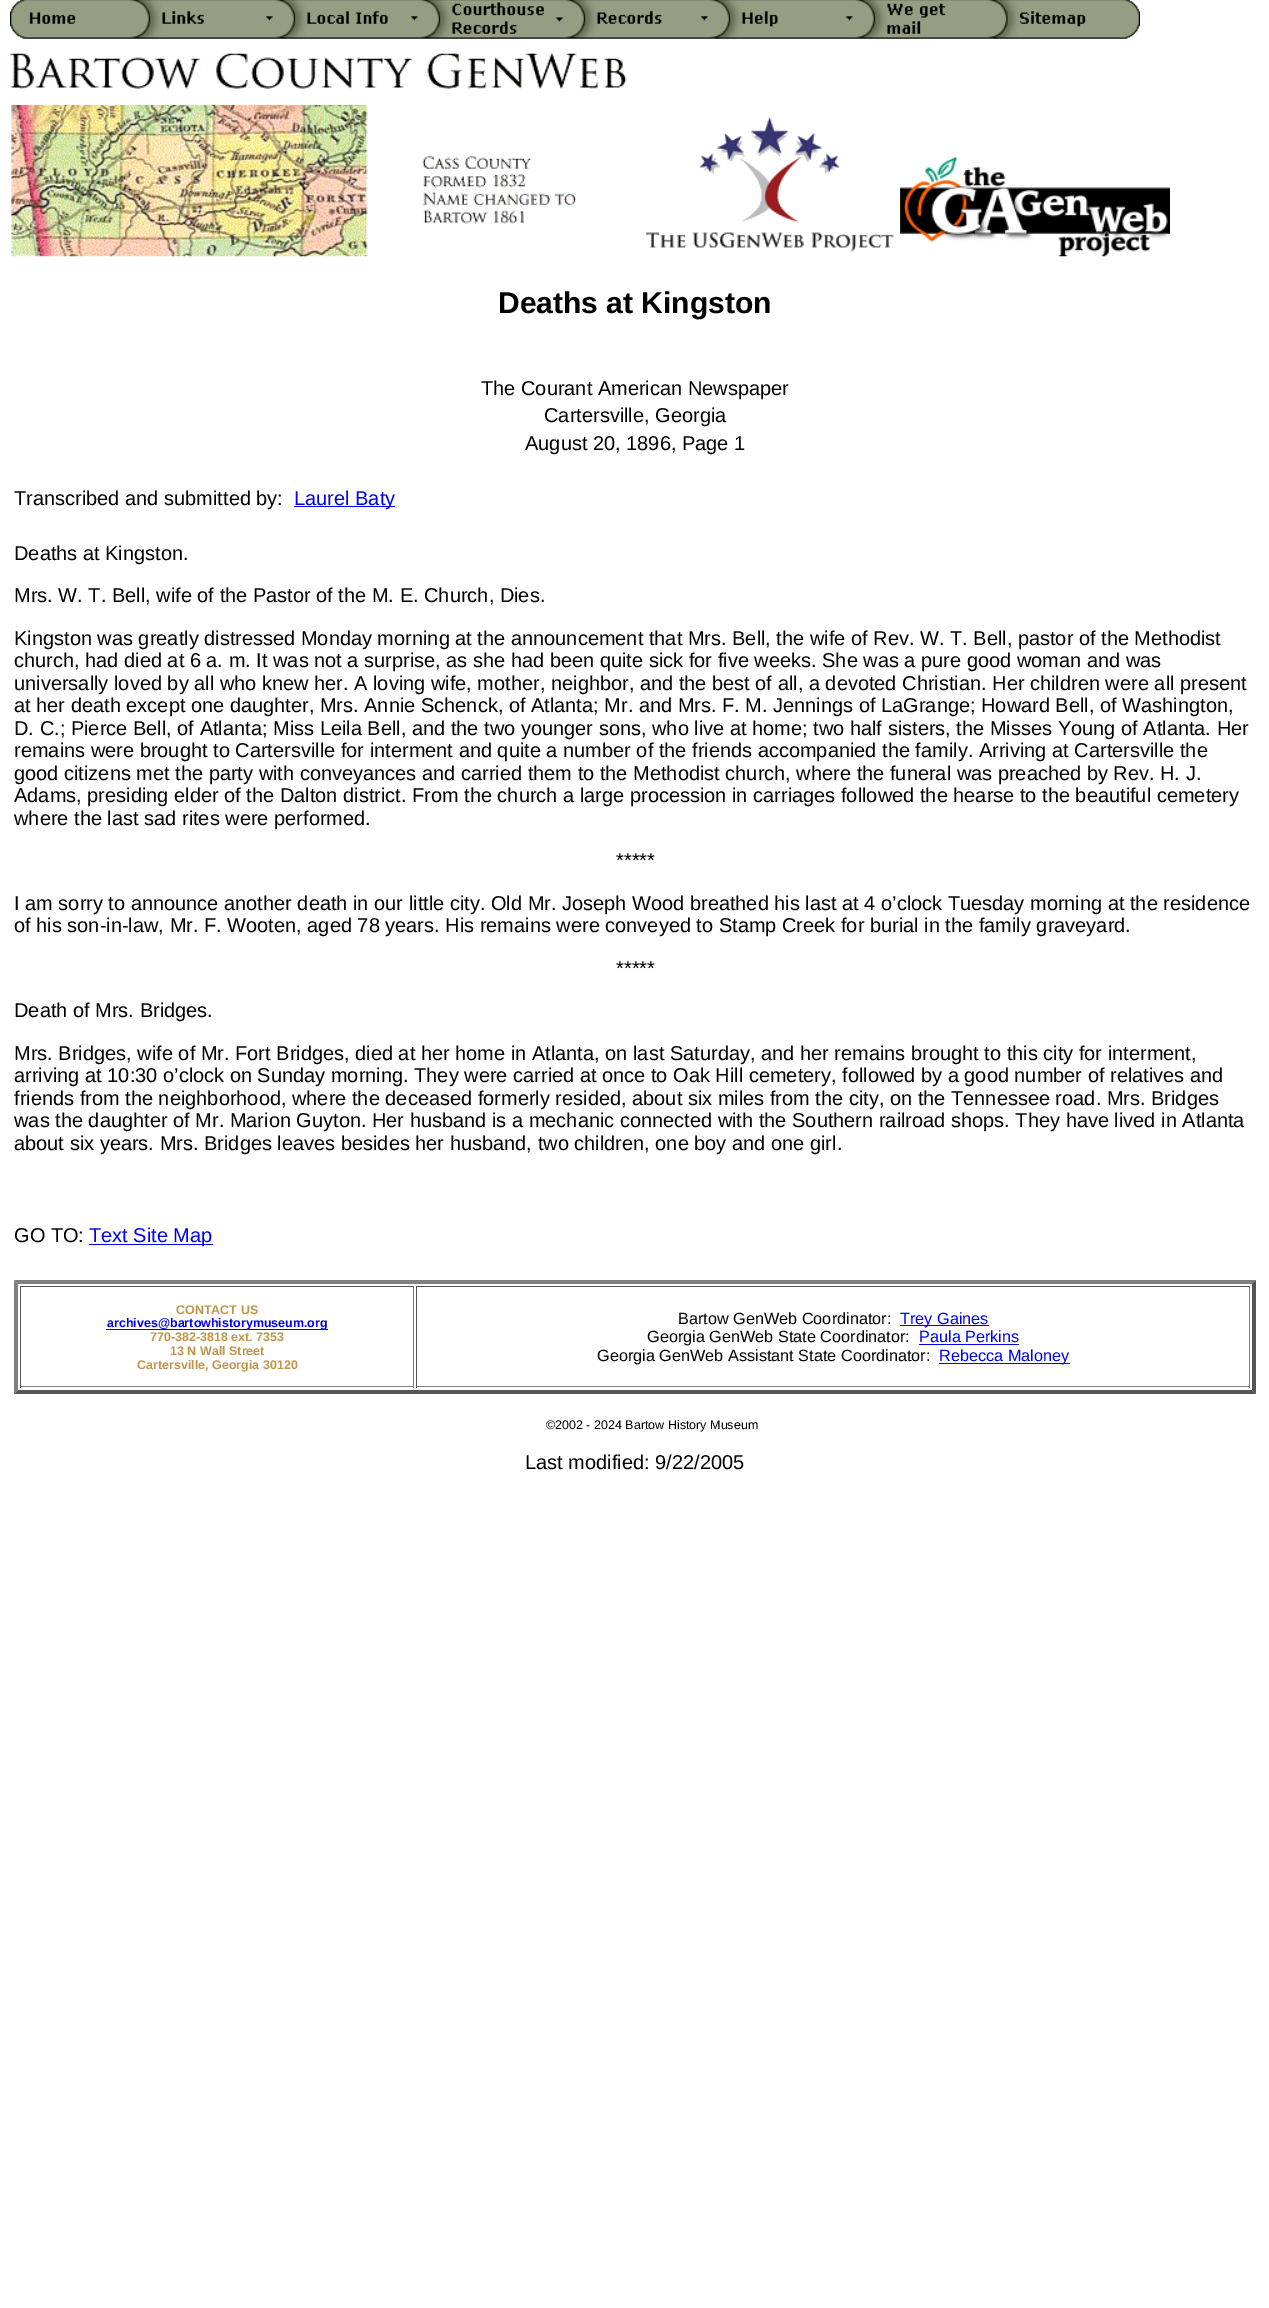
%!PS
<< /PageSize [1269 2308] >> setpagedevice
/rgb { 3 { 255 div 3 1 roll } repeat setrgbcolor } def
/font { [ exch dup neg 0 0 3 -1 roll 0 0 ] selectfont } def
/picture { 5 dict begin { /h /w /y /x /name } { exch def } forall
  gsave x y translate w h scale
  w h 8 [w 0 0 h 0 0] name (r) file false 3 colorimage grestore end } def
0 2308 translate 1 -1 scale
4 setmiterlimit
255 255 255 rgb
0 0 1269 2308 rectfill
(img/1.rgb) 10 0 1130 39 picture
(img/2.rgb) 10 53 617 204 picture
(img/3.rgb) 646 117 248 135 picture
(img/4.rgb) 900 157 270 100 picture
0 0 238 rgb
294 506 101 1 rectfill
89 1244 124 1 rectfill
128 128 128 rgb
14 1280 moveto 1256 1280 lineto 1252 1284 lineto 18 1284 lineto closepath fill
85 85 85 rgb
1256 1280 moveto 1256 1394 lineto 1252 1390 lineto 1252 1284 lineto closepath fill
1256 1394 moveto 14 1394 lineto 18 1390 lineto 1252 1390 lineto closepath fill
128 128 128 rgb
14 1394 moveto 14 1280 lineto 18 1284 lineto 18 1390 lineto closepath fill
[
  [20 1286 394 1 85 85 85]
  [413 1286 1 102 128 128 128]
  [20 1386 394 1 128 128 128]
  [20 1286 1 102 85 85 85]
  [106 1329 222 1 0 0 238]
  [416 1286 834 1 85 85 85]
  [1249 1286 1 102 128 128 128]
  [416 1386 834 1 128 128 128]
  [416 1286 1 102 85 85 85]
  [900 1325 89 1 0 0 238]
  [919 1344 100 1 0 0 238]
  [939 1363 131 1 0 0 238]
] { aload pop rgb rectfill } forall
/LiberationSans-Bold 30 font
0 0 0 rgb
498 313 moveto (Deaths at Kingston) show
/LiberationSans-Regular 20 font
[
  [(The Courant American Newspaper) 481 395]
  [(Cartersville, Georgia) 544 422]
  [(August 20, 1896, Page 1) 525 450]
  [(Transcribed and submitted by:) 14 505]
] { aload pop moveto show } forall
0 0 238 rgb
294 505 moveto (Laurel Baty) show
0 0 0 rgb
[
  [(Deaths at Kingston.) 14 560]
  [(Mrs. W. T. Bell, wife of the Pastor of the M. E. Church, Dies.) 14 602]
  [(Kingston was greatly distressed Monday morning at the announcement that Mrs. Bell, the wife of Rev. W. T. Bell, pastor of the Methodist) 14 645]
  [(church, had died at 6 a. m. It was not a surprise, as she had been quite sick for five weeks. She was a pure good woman and was) 14 667]
  [(universally loved by all who knew her. A loving wife, mother, neighbor, and the best of all, a devoted Christian. Her children were all present) 14 690]
  [(at her death except one daughter, Mrs. Annie Schenck, of Atlanta; Mr. and Mrs. F. M. Jennings of LaGrange; Howard Bell, of Washington,) 14 712]
  [(D. C.; Pierce Bell, of Atlanta; Miss Leila Bell, and the two younger sons, who live at home; two half sisters, the Misses Young of Atlanta. Her) 14 735]
  [(remains were brought to Cartersville for interment and quite a number of the friends accompanied the family. Arriving at Cartersville the) 14 757]
  [(good citizens met the party with conveyances and carried them to the Methodist church, where the funeral was preached by Rev. H. J.) 14 780]
  [(Adams, presiding elder of the Dalton district. From the church a large procession in carriages followed the hearse to the beautiful cemetery) 14 802]
  [(where the last sad rites were performed.) 14 825]
  [(*****) 616 867]
  [(I am sorry to announce another death in our little city. Old Mr. Joseph Wood breathed his last at 4 o’clock Tuesday morning at the residence) 14 910]
  [(of his son-in-law, Mr. F. Wooten, aged 78 years. His remains were conveyed to Stamp Creek for burial in the family graveyard.) 14 932]
  [(*****) 616 975]
  [(Death of Mrs. Bridges.) 14 1017]
  [(Mrs. Bridges, wife of Mr. Fort Bridges, died at her home in Atlanta, on last Saturday, and her remains brought to this city for interment,) 14 1060]
  [(arriving at 10:30 o’clock on Sunday morning. They were carried at once to Oak Hill cemetery, followed by a good number of relatives and) 14 1082]
  [(friends from the neighborhood, where the deceased formerly resided, about six miles from the city, on the Tennessee road. Mrs. Bridges) 14 1105]
  [(was the daughter of Mr. Marion Guyton. Her husband is a mechanic connected with the Southern railroad shops. They have lived in Atlanta) 14 1127]
  [(about six years. Mrs. Bridges leaves besides her husband, two children, one boy and one girl.) 14 1150]
  [(GO TO:) 14 1242]
] { aload pop moveto show } forall
0 0 238 rgb
89 1242 moveto (Text Site Map) show
/LiberationSans-Bold 12.5 font
191 149 75 rgb
176 1314 moveto (CONTACT US) show
0 0 238 rgb
107 1327 moveto (archives@bartowhistorymuseum.org) show
191 149 75 rgb
[
  [(770-382-3818 ext. 7353) 150 1341]
  [(13 N Wall Street) 170 1355]
  [(Cartersville, Georgia 30120) 137 1369]
] { aload pop moveto show } forall
/LiberationSans-Regular 16.25 font
0 0 0 rgb
678 1324 moveto (Bartow GenWeb Coordinator:) show
0 0 238 rgb
900 1324 moveto (Trey Gaines) show
0 0 0 rgb
647 1342 moveto (Georgia GenWeb State Coordinator:) show
0 0 238 rgb
919 1342 moveto (Paula Perkins) show
0 0 0 rgb
597 1361 moveto (Georgia GenWeb Assistant State Coordinator:) show
0 0 238 rgb
939 1361 moveto (Rebecca Maloney) show
/LiberationSans-Regular 12.5 font
0 0 0 rgb
546 1429 moveto (©2002 - 2024 Bartow History Museum) show
/LiberationSans-Regular 20 font
525 1469 moveto (Last modified: 9/22/2005) show
showpage
